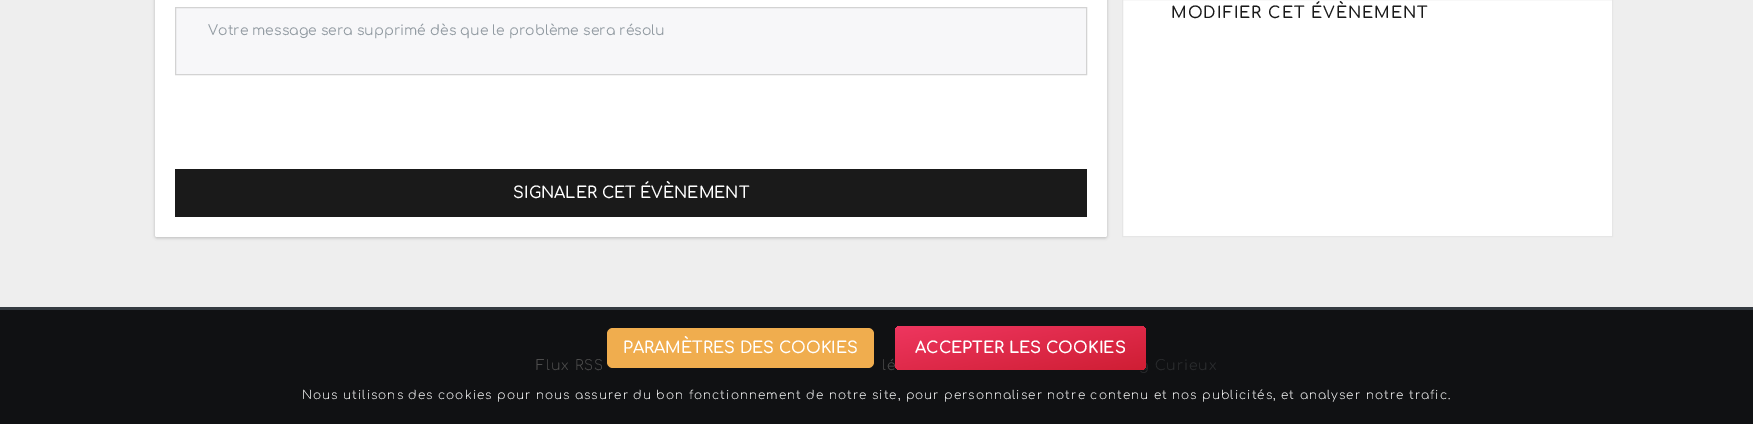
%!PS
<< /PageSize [1753 424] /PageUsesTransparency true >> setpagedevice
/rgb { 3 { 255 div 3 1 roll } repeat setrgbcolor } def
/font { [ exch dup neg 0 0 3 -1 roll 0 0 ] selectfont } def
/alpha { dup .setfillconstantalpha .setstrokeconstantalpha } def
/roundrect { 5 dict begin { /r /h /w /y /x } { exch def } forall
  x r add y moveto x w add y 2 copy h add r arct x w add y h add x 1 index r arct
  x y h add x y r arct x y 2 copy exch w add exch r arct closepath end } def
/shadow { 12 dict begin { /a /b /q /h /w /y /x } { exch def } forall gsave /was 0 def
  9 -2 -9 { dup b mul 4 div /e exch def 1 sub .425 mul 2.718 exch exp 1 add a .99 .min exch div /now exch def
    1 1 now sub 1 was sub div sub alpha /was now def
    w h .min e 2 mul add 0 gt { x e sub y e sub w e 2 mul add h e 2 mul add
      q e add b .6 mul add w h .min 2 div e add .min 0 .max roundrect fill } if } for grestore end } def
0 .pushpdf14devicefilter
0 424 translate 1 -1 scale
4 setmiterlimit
238 238 238 rgb
0 0 1753 424 rectfill
255 255 255 rgb
1122.5 -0.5 moveto 1612.5 -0.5 lineto 1612.5 236.5 lineto 1122.5 236.5 lineto closepath gsave fill grestore
230 230 230 rgb
stroke
187 187 187 rgb
155 -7 952 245 2 1.5 1 shadow
255 255 255 rgb
155 -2 952 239 2 roundrect fill
247 247 249 rgb
175.5 7.5 moveto 1086.5 7.5 lineto 1086.5 74.5 lineto 175.5 74.5 lineto closepath gsave fill grestore
211 211 211 rgb
stroke
26 26 26 rgb
175 169 912 48 rectfill
16 17 19 rgb
0 310 1753 114 rectfill
240 173 78 rgb
607 328 267 40 6 roundrect fill
52 58 64 rgb
0 307 1753 3 rectfill
/Comfortaa-SemiBold 16 font
26 26 26 rgb
1171 18 moveto 1 0 (MODIFIER CET ÉVÈNEMENT) ashow
/Comfortaa-Regular 14 font
145 154 161 rgb
208 35 moveto (Votre message sera supprimé dès que le problème sera résolu) show
/Comfortaa-SemiBold 16 font
255 255 255 rgb
513 198 moveto (SIGNALER CET ÉVÈNEMENT) show
623 353 moveto (PARAMÈTRES DES COOKIES) show
/Comfortaa-Light 12 font
302 399 moveto 1 0 (Nous utilisons des cookies pour nous assurer du bon fonctionnement de notre site, pour personnaliser notre contenu et nos publicités, et analyser notre trafic.) ashow
/Comfortaa-Light 14 font
77 77 77 rgb
536 370 moveto 1 0 (Flux RSS) ashow
882 370 moveto 1 0 (lé) ashow
44 46 48 rgb
1139 370 moveto 1 0 (g Curieux) ashow
gsave 895 326 251 44 6 roundrect clip newpath
<< /ShadingType 2 /ColorSpace /DeviceRGB /Coords [1029 392 1012 304] /Extend [true true] /Function << /FunctionType 2 /Domain [0 1] /C0 [0.812 0.118 0.204] /C1 [0.933 0.212 0.373] /N 1 >> >> shfill grestore
/Comfortaa-Bold 16 font
255 255 255 rgb
915 353 moveto (ACCEPTER LES COOKIES) show
.poppdf14devicefilter showpage
